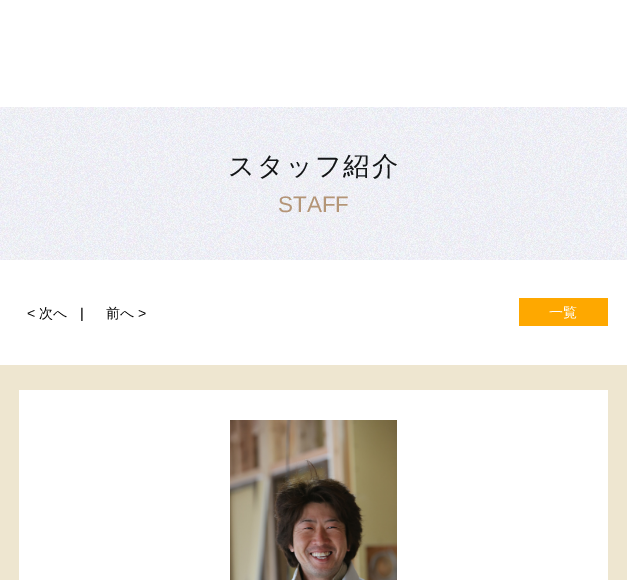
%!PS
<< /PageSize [627 580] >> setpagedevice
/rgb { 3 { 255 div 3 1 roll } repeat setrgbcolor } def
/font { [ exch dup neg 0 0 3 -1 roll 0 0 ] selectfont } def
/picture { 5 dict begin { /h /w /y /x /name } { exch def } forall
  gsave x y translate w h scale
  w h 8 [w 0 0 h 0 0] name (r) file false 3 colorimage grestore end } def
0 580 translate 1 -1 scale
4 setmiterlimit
255 255 255 rgb
0 0 627 580 rectfill
(img/1.rgb) 0 107 627 153 picture
[
  [519 298 89 28 254 168 0]
  [0 365 627 215 238 230 208]
  [19 390 589 190 255 255 255]
] { aload pop rgb rectfill } forall
(img/2.rgb) 230 420 167 160 picture
/WenQuanYiZenHei-Medium 26.25 font
19 21 23 rgb
228 175 moveto 2 0 (スタッフ紹介) ashow
/LiberationSans-Regular 22.5 font
180 149 119 rgb
278 212 moveto (STAFF) show
/LiberationSans-Regular 14 font
9 9 9 rgb
27 318 moveto (<) show
/WenQuanYiZenHei-Medium 14 font
39 318 moveto (次へ) show
/LiberationSans-Regular 14 font
0 0 0 rgb
80 318 moveto (|) show
/WenQuanYiZenHei-Medium 14 font
9 9 9 rgb
106 318 moveto (前へ) show
/LiberationSans-Regular 14 font
138 318 moveto (>) show
/WenQuanYiZenHei-Medium 14 font
255 255 255 rgb
549 317 moveto (一覧) show
showpage
